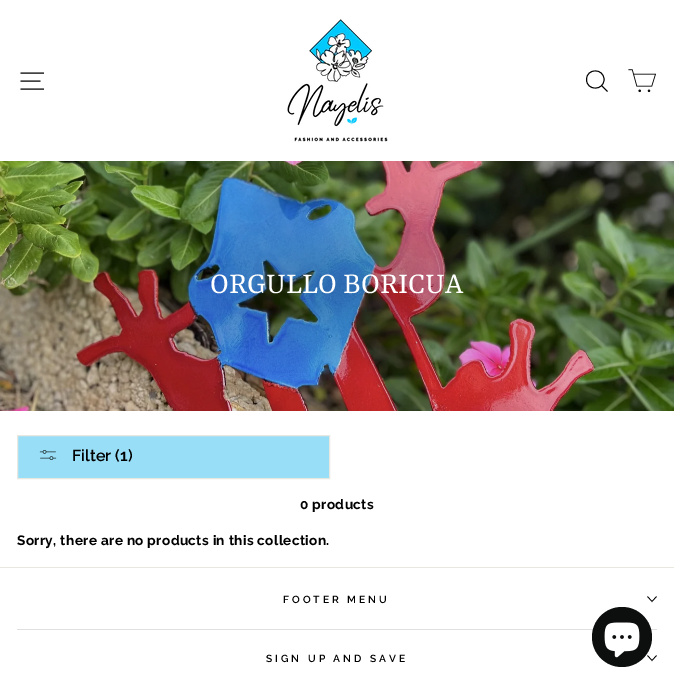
%!PS
<< /PageSize [674 688] >> setpagedevice
/rgb { 3 { 255 div 3 1 roll } repeat setrgbcolor } def
/font { [ exch dup neg 0 0 3 -1 roll 0 0 ] selectfont } def
/circle { newpath 0 360 arc closepath } def
/picture { 5 dict begin { /h /w /y /x /name } { exch def } forall
  gsave x y translate w h scale
  w h 8 [w 0 0 h 0 0] name (r) file false 3 colorimage grestore end } def
0 688 translate 1 -1 scale
4 setmiterlimit
255 255 255 rgb
0 0 674 688 rectfill
0 0 0 rgb
0.9 setlinewidth
20.5 73 moveto 44 73 lineto 20.5 81 moveto 40.5 81 lineto 20.5 89 moveto 44 89 lineto stroke
(img/1.rgb) 287 19 101 123 picture
604 79.5 moveto 604 91 586.5 91 586.5 79.5 curveto 586.5 68 604 68 604 79.5 curveto closepath 607.5 91.5 moveto 601.5 85.5 lineto stroke
(img/2.rgb) 628 69 28 24 picture
(img/3.rgb) 0 161 674 250 picture
153 222 247 rgb
17.5 435.5 moveto 329.5 435.5 lineto 329.5 478.5 lineto 17.5 478.5 lineto closepath gsave fill grestore
232 232 225 rgb
1 setlinewidth
stroke
(img/4.rgb) 39 450 18 10 picture
0 567 674 1 rectfill
0 0 0 rgb
0.7 setlinewidth
647.5 596.5 moveto 652 601.5 lineto 656.5 596.5 lineto stroke
224 224 224 rgb
17 629 640 1 rectfill
0 0 0 rgb
647.5 655.5 moveto 652 660.5 lineto 656.5 655.5 lineto stroke
13 14 14 rgb
622 637 30 circle fill
(img/5.rgb) 604 622 36 36 picture
/Yrsa-Regular 32.25 font
255 255 255 rgb
210 293 moveto (ORGULLO BORICUA) show
/Raleway-SemiBold 16 font
0 0 0 rgb
72 461 moveto (Filter \(1\)) show
/Raleway-Bold 13.6 font
300 509 moveto 0.35 0 (0 products) ashow
17 545 moveto 0.35 0 (Sorry, there are no products in this collection.) ashow
/Raleway-SemiBold 10.25 font
283 603 moveto 3 0 (FOOTER MENU) ashow
266 662 moveto 3 0 (SIGN UP AND SAVE) ashow
showpage
